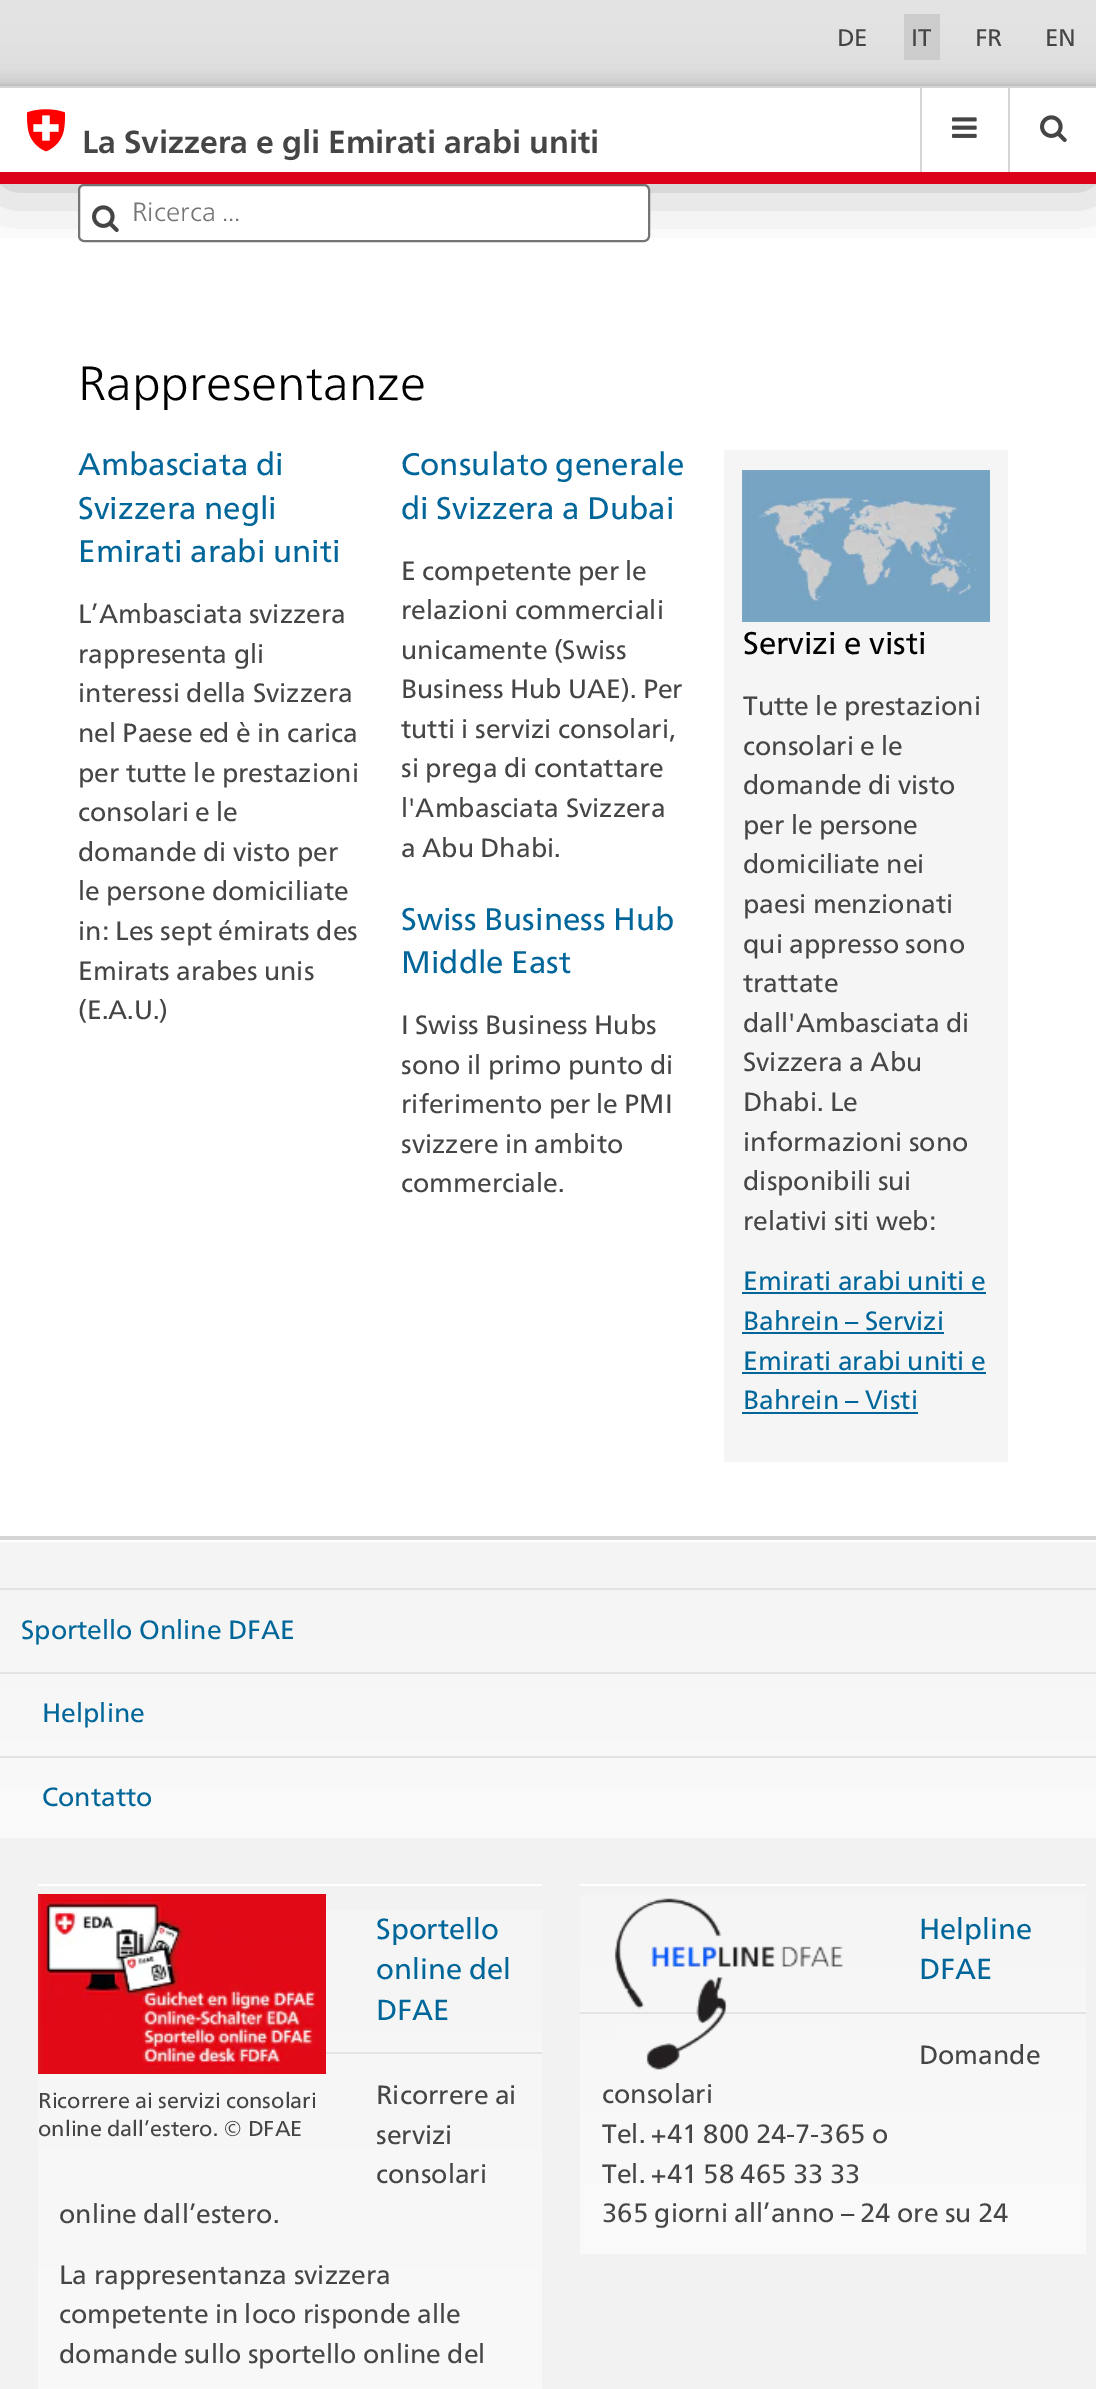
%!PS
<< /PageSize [1096 2389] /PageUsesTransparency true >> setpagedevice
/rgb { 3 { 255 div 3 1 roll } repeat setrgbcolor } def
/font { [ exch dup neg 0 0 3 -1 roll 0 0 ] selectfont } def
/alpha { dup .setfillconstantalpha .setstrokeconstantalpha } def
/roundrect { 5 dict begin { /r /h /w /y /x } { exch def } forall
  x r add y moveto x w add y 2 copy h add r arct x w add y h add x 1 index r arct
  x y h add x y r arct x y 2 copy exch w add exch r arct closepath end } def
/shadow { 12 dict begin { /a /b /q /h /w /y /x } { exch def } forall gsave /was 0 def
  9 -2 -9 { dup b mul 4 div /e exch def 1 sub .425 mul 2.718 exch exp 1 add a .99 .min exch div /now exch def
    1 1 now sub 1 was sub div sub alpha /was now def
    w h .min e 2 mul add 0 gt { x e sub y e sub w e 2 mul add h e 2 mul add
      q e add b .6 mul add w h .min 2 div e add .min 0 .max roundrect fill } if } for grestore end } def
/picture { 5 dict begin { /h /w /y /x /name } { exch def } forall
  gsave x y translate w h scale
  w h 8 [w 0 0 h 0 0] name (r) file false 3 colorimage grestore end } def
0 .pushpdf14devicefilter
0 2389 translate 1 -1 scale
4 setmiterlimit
255 255 255 rgb
0 0 1096 2389 rectfill
gsave
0 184 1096 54 rectclip
0 0 0 rgb
0 88 1096 96 0 36 0.3 shadow
grestore
gsave 0 0 moveto 1096 0 lineto 1096 86 lineto 0 86 lineto closepath clip newpath
<< /ShadingType 2 /ColorSpace /DeviceRGB /Coords [548 0 548 86] /Extend [true true] /Function << /FunctionType 3 /Domain [0 1] /Functions [<< /FunctionType 2 /Domain [0 1] /C0 [0.894 0.894 0.894] /C1 [0.886 0.886 0.886] /N 1 >> << /FunctionType 2 /Domain [0 1] /C0 [0.886 0.886 0.886] /C1 [0.867 0.867 0.867] /N 1 >> << /FunctionType 2 /Domain [0 1] /C0 [0.867 0.867 0.867] /C1 [0.835 0.835 0.835] /N 1 >> << /FunctionType 2 /Domain [0 1] /C0 [0.835 0.835 0.835] /C1 [0.812 0.812 0.812] /N 1 >> << /FunctionType 2 /Domain [0 1] /C0 [0.812 0.812 0.812] /C1 [0.745 0.745 0.745] /N 1 >>] /Bounds [0.39 0.79 0.91 0.95] /Encode [0 1 0 1 0 1 0 1 0 1] >> >> shfill grestore
[
  [0 86 1096 2 213 213 213]
  [904 14 36 46 204 204 204]
  [0 172 1096 12 220 0 24]
] { aload pop rgb rectfill } forall
(img/1.rgb) 27 109 39 43 picture
213 213 213 rgb
920 88 2 84 rectfill
(img/2.rgb) 952 117 25 21 picture
1008 88 2 84 rectfill
(img/3.rgb) 1040 115 27 27 picture
255 255 255 rgb
79 185 570 56 5 roundrect gsave fill grestore
117 117 117 rgb
2 setlinewidth
stroke
(img/3.rgb) 92 205 27 27 picture
245 245 245 rgb
724 450 284 1012 rectfill
(img/4.rgb) 742 470 248 152 picture
[
  [742 1292 244 2 0 102 153]
  [742 1332 202 2 0 102 153]
  [742 1372 244 2 0 102 153]
  [742 1412 176 2 0 102 153]
  [0 1838 1096 551 242 242 242]
  [0 1536 1096 4 213 213 213]
] { aload pop rgb rectfill } forall
gsave 0 1542 moveto 1096 1542 lineto 1096 1838 lineto 0 1838 lineto closepath clip newpath
<< /ShadingType 2 /ColorSpace /DeviceRGB /Coords [548 1540 548 1838] /Extend [true true] /Function << /FunctionType 2 /Domain [0 1] /C0 [0.957 0.957 0.957] /C1 [0.98 0.98 0.98] /N 1 >> >> shfill grestore
[
  [0 1588 1096 2 227 227 227]
  [0 1672 1096 2 227 227 227]
  [0 1756 1096 2 227 227 227]
] { aload pop rgb rectfill } forall
gsave 38 1910 moveto 542 1910 lineto 542 2389 lineto 38 2389 lineto closepath clip newpath
<< /ShadingType 2 /ColorSpace /DeviceRGB /Coords [290 1862 290 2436] /Extend [true true] /Function << /FunctionType 2 /Domain [0 1] /C0 [0.957 0.957 0.957] /C1 [0.98 0.98 0.98] /N 1 >> >> shfill grestore
255 255 255 rgb
38 1884 504 2 rectfill
227 227 227 rgb
326 2052 216 2 rectfill
(img/5.rgb) 38 1894 288 180 picture
gsave 580 1895 moveto 1086 1895 lineto 1086 2254 lineto 580 2254 lineto closepath clip newpath
<< /ShadingType 2 /ColorSpace /DeviceRGB /Coords [833 1862 833 2254] /Extend [true true] /Function << /FunctionType 2 /Domain [0 1] /C0 [0.957 0.957 0.957] /C1 [0.98 0.98 0.98] /N 1 >> >> shfill grestore
580 2012 506 2 rectfill
(img/6.rgb) 614 1898 229 172 picture
255 255 255 rgb
580 1884 506 2 rectfill
/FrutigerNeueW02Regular-Regular 24 font
69 69 69 rgb
[
  [(DE) 837 46]
  [(IT) 911 46]
  [(FR) 975 46]
  [(EN) 1045 46]
] { aload pop moveto show } forall
/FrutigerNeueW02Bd-Bold 31.7 font
82 153 moveto (La Svizzera e gli Emirati arabi uniti) show
/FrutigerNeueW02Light-Light 26.4 font
117 117 117 rgb
132 221 moveto (Ricerca ...) show
/FrutigerNeueW02Light-Light 48 font
0 0 0 rgb
78 400 moveto (Rappresentanze) show
/FrutigerNeueW02Regular-Regular 31.25 font
0 102 153 rgb
[
  [(Ambasciata di) 78 475]
  [(Svizzera negli) 78 519]
  [(Emirati arabi uniti) 78 562]
] { aload pop moveto show } forall
/FrutigerNeueW02Regular-Regular 26.4 font
69 69 69 rgb
[
  [(L’Ambasciata svizzera) 78 623]
  [(rappresenta gli) 78 663]
  [(interessi della Svizzera) 78 702]
  [(nel Paese ed è in carica) 78 742]
  [(per tutte le prestazioni) 78 782]
  [(consolari e le) 78 821]
  [(domande di visto per) 78 861]
  [(le persone domiciliate) 78 900]
  [(in: Les sept émirats des) 78 940]
  [(Emirats arabes unis) 78 980]
  [(\(E.A.U.\)) 78 1019]
] { aload pop moveto show } forall
/FrutigerNeueW02Regular-Regular 31.25 font
0 102 153 rgb
401 475 moveto (Consulato generale) show
401 519 moveto (di Svizzera a Dubai) show
/FrutigerNeueW02Regular-Regular 26.4 font
69 69 69 rgb
[
  [(E competente per le) 401 580]
  [(relazioni commerciali) 401 619]
  [(unicamente \(Swiss) 401 659]
  [(Business Hub UAE\). Per) 401 698]
  [(tutti i servizi consolari,) 401 738]
  [(si prega di contattare) 401 777]
  [(l'Ambasciata Svizzera) 401 817]
  [(a Abu Dhabi.) 401 857]
] { aload pop moveto show } forall
/FrutigerNeueW02Regular-Regular 31.25 font
0 102 153 rgb
401 930 moveto (Swiss Business Hub) show
401 973 moveto (Middle East) show
/FrutigerNeueW02Regular-Regular 26.4 font
69 69 69 rgb
[
  [(I Swiss Business Hubs) 401 1034]
  [(sono il primo punto di) 401 1074]
  [(riferimento per le PMI) 401 1113]
  [(svizzere in ambito) 401 1153]
  [(commerciale.) 401 1192]
] { aload pop moveto show } forall
/FrutigerNeueW02Regular-Regular 31.25 font
0 0 0 rgb
743 654 moveto (Servizi e visti) show
/FrutigerNeueW02Regular-Regular 26.4 font
69 69 69 rgb
[
  [(Tutte le prestazioni) 743 715]
  [(consolari e le) 743 755]
  [(domande di visto) 743 794]
  [(per le persone) 743 834]
  [(domiciliate nei) 743 873]
  [(paesi menzionati) 743 913]
  [(qui appresso sono) 743 953]
  [(trattate) 743 992]
  [(dall'Ambasciata di) 743 1032]
  [(Svizzera a Abu) 743 1071]
  [(Dhabi. Le) 743 1111]
  [(informazioni sono) 743 1151]
  [(disponibili sui) 743 1190]
  [(relativi siti web:) 743 1230]
] { aload pop moveto show } forall
0 102 153 rgb
[
  [(Emirati arabi uniti e) 743 1290]
  [(Bahrein – Servizi) 743 1330]
  [(Emirati arabi uniti e) 743 1370]
  [(Bahrein – Visti) 743 1409]
  [(Sportello Online DFAE) 21 1639]
  [(Helpline) 42 1722]
  [(Contatto) 42 1806]
] { aload pop moveto show } forall
/FrutigerNeueW02Regular-Regular 29 font
[
  [(Sportello) 376 1939]
  [(online del) 376 1979]
  [(DFAE) 376 2020]
] { aload pop moveto show } forall
/FrutigerNeueW02Regular-Regular 26.4 font
69 69 69 rgb
[
  [(Ricorrere ai) 376 2104]
  [(servizi) 376 2144]
  [(consolari) 376 2183]
  [(online dall’estero.) 59 2223]
] { aload pop moveto show } forall
/FrutigerNeueW02Regular-Regular 21.6 font
38 2108 moveto (Ricorrere ai servizi consolari) show
38 2136 moveto (online dall’estero. © DFAE) show
/FrutigerNeueW02Regular-Regular 26.4 font
[
  [(La rappresentanza svizzera) 59 2284]
  [(competente in loco risponde alle) 59 2323]
  [(domande sullo sportello online del) 59 2363]
] { aload pop moveto show } forall
/FrutigerNeueW02Regular-Regular 29 font
0 102 153 rgb
919 1939 moveto (Helpline) show
919 1979 moveto (DFAE) show
/FrutigerNeueW02Regular-Regular 26.4 font
69 69 69 rgb
[
  [(Domande) 919 2064]
  [(consolari) 602 2103]
  [(Tel. +41 800 24-7-365 o) 602 2143]
  [(Tel. +41 58 465 33 33) 602 2183]
  [(365 giorni all’anno – 24 ore su 24) 602 2222]
] { aload pop moveto show } forall
.poppdf14devicefilter showpage
